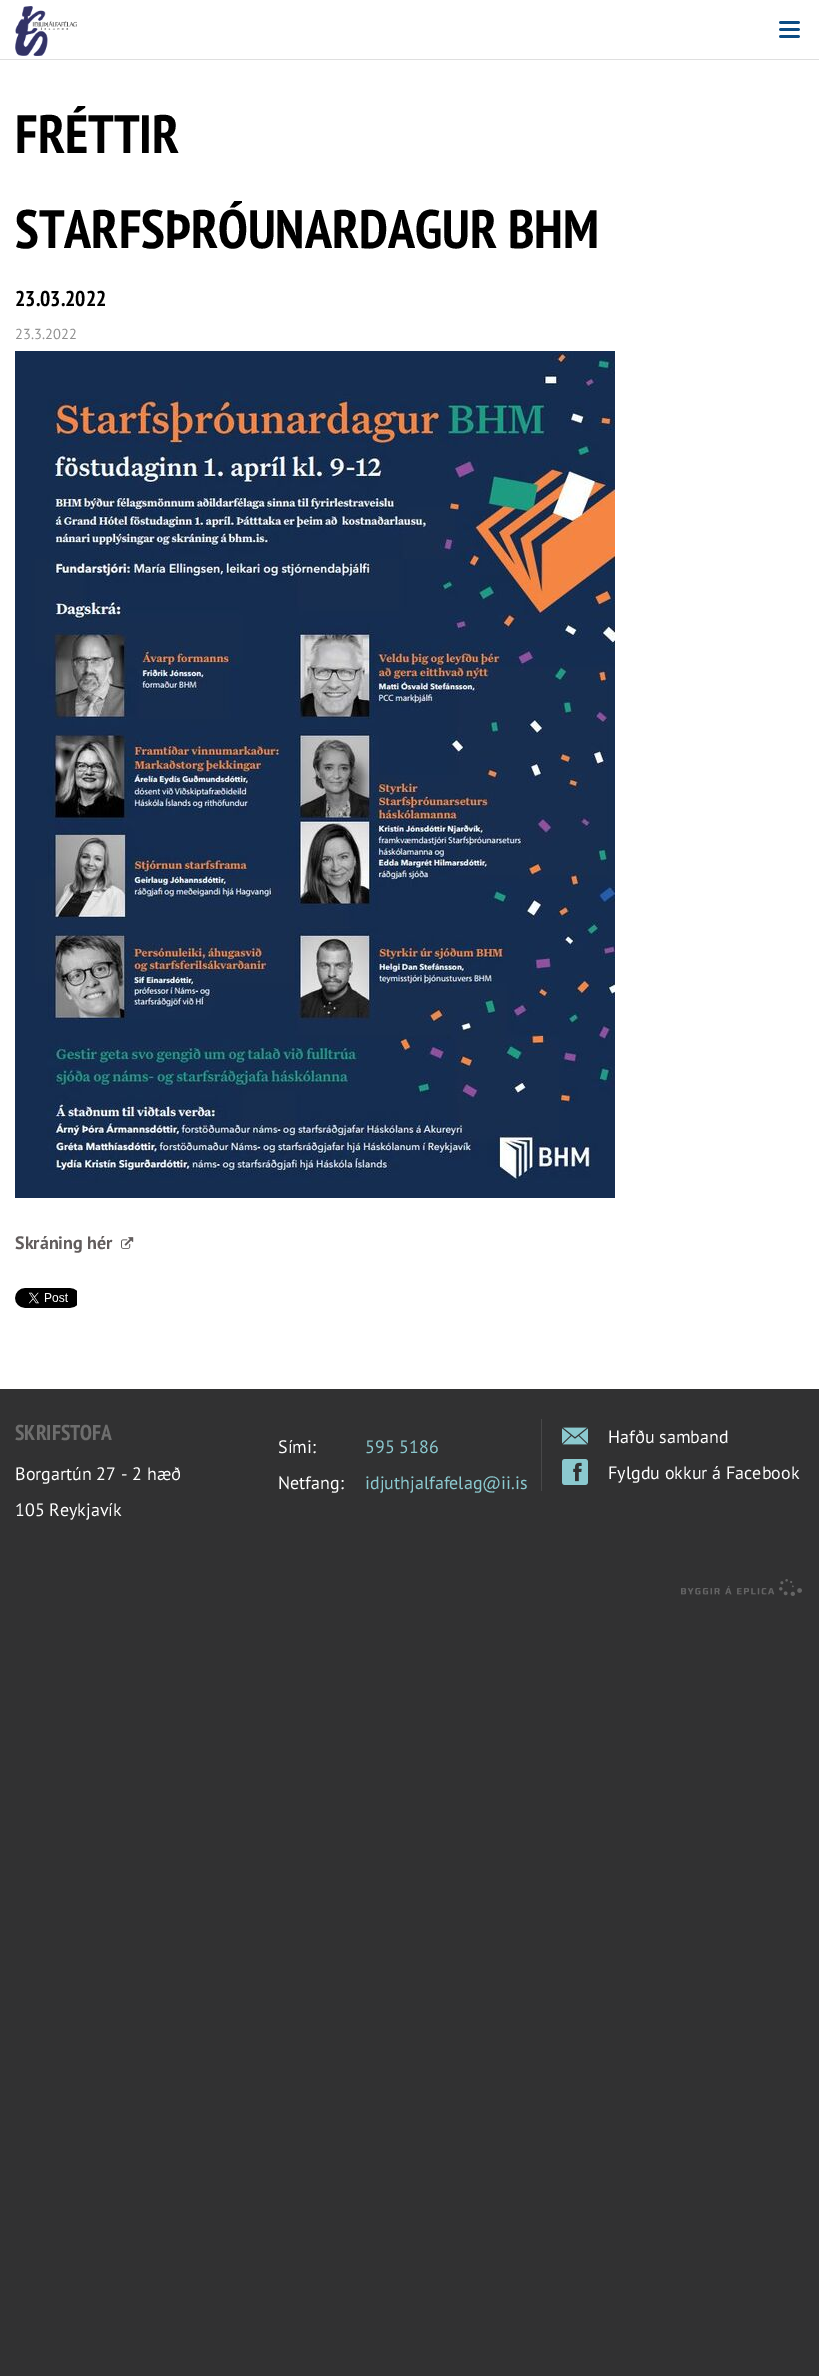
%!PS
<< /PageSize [819 2376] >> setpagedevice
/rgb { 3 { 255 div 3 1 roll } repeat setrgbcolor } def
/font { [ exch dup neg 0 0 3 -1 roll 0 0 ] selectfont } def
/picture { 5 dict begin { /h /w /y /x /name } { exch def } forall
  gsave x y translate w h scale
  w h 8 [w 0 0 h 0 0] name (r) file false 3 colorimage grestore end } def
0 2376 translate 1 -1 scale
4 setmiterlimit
49 49 50 rgb
0 0 819 2376 rectfill
255 255 255 rgb
0 0 819 59 rectfill
223 223 223 rgb
0 59 819 1 rectfill
(img/1.rgb) 15 6 62 50 picture
(img/2.rgb) 779 21 21 17 picture
255 255 255 rgb
0 60 819 1329 rectfill
(img/3.rgb) 15 351 600 847 picture
(img/4.rgb) 121 1237 13 12 picture
(img/5.rgb) 15 1288 62 20 picture
72 72 73 rgb
541 1419 1 72 rectfill
(img/6.rgb) 562 1427 26 18 picture
(img/7.rgb) 562 1459 26 26 picture
(img/8.rgb) 681 1579 121 17 picture
/PTSansNarrow-Bold 54 font
0 0 0 rgb
15 153 moveto (FRÉTTIR) show
15 248 moveto (STARFSÞRÓUNARDAGUR BHM) show
/PTSansNarrow-Bold 21.5 font
15 306 moveto (23.03.2022) show
/PTSans-Regular 14.5 font
145 145 145 rgb
15 339 moveto (23.3.2022) show
/PTSans-Bold 18 font
98 93 93 rgb
15 1249 moveto (Skráning hér) show
/PTSansNarrow-Bold 21.5 font
110 110 110 rgb
15 1440 moveto (SKRIFSTOFA) show
/PTSans-Regular 18 font
255 255 255 rgb
[
  [(Borgartún 27 - 2 hæð) 15 1480]
  [(105 Reykjavík) 15 1516]
  [(Sími:) 278 1453]
] { aload pop moveto show } forall
139 201 207 rgb
365 1453 moveto (595 5186) show
255 255 255 rgb
278 1489 moveto (Netfang:) show
139 201 207 rgb
365 1489 moveto (idjuthjalfafelag@ii.is) show
255 255 255 rgb
608 1443 moveto (Hafðu samband) show
608 1479 moveto (Fylgdu okkur á Facebook) show
showpage
